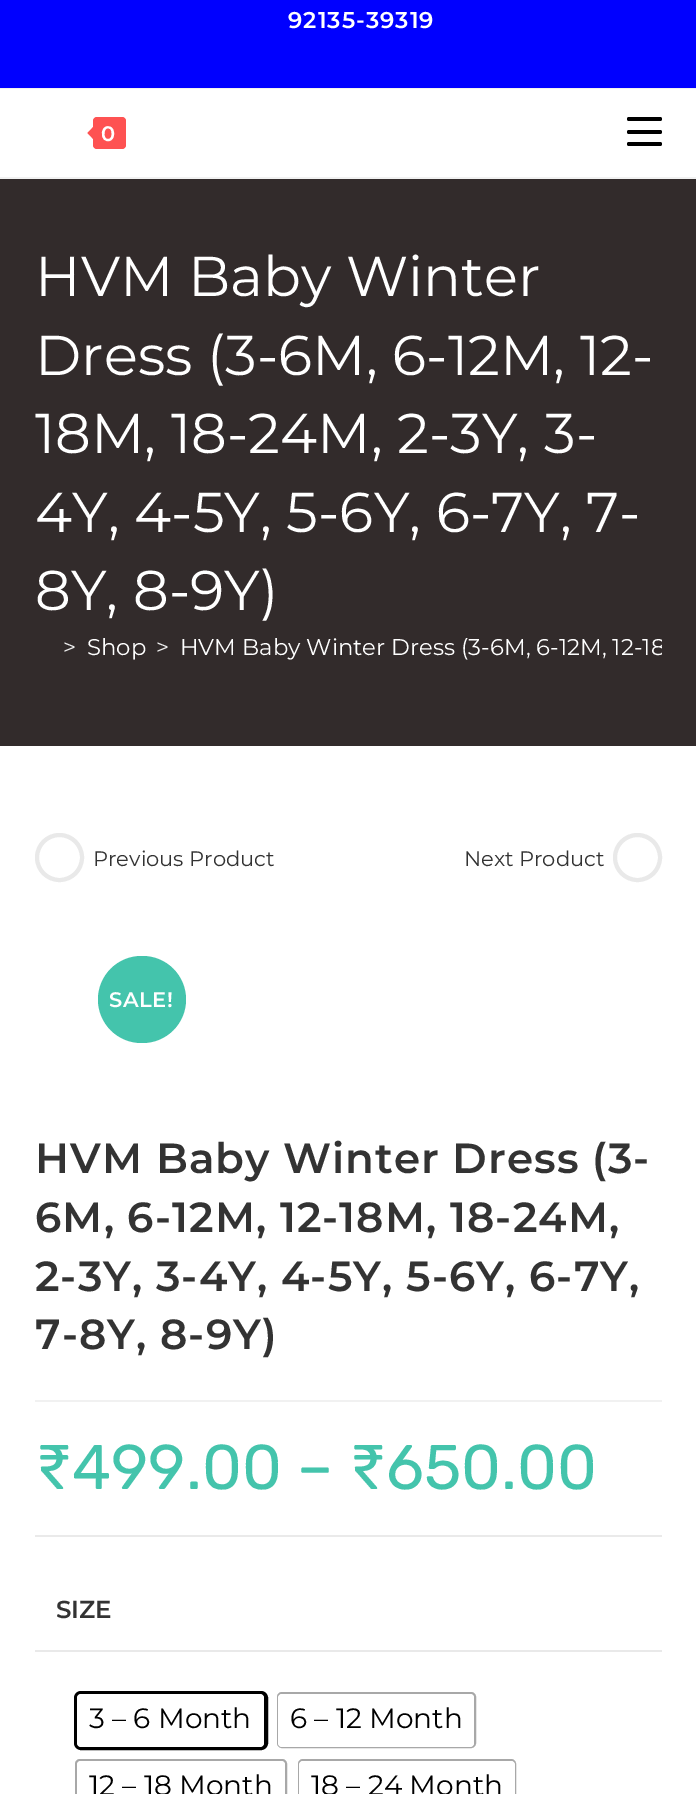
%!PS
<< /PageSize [696 1794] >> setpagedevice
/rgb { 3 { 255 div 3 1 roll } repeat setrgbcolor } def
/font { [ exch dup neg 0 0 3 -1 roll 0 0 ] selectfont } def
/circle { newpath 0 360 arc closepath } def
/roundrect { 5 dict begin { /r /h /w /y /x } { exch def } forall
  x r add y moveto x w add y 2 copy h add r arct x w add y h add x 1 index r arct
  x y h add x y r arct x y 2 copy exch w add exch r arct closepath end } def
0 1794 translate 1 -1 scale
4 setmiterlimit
255 255 255 rgb
0 0 696 1794 rectfill
[
  [0 0 696 88 0 0 255]
  [0 88 696 1 241 241 241]
  [0 177 696 2 241 241 241]
] { aload pop rgb rectfill } forall
254 82 82 rgb
93 117 33 32 4 roundrect fill
96 124 moveto 96 142 lineto 87.5 133 lineto closepath fill
0 0 0 rgb
627 142 35 4 2 roundrect fill
627 117 35 4 2 roundrect fill
627 130 35 4 2 roundrect fill
50 43 43 rgb
0 179 696 567 rectfill
233 233 233 rgb
4 setlinewidth
59.5 857.5 22.5 circle stroke
637.5 857.5 22.5 circle stroke
68 196 172 rgb
98 956 88 87 43.5 roundrect fill
[
  [35 1400 627 2 241 241 241]
  [35 1535 627 2 234 234 234]
  [35 1650 627 2 233 233 233]
] { aload pop rgb rectfill } forall
0 0 0 rgb
76 1693 190 55 5 roundrect stroke
255 255 255 rgb
77 1694 187 53 4 roundrect fill
168 168 168 rgb
2 setlinewidth
278 1693 197 54 4 roundrect stroke
255 255 255 rgb
278 1694 196 53 4 roundrect fill
168 168 168 rgb
76 1760 210 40 4 roundrect stroke
255 255 255 rgb
77 1761 208 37 4 roundrect fill
168 168 168 rgb
299 1760 216 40 4 roundrect stroke
255 255 255 rgb
299 1761 216 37 4 roundrect fill
/Montserrat-SemiBold 22.75 font
288 28 moveto 1.05 0 (92135-39319) ashow
/Montserrat-SemiBold 21 font
101 141 moveto 2 0 (0) ashow
/Montserrat-Regular 56 font
[
  [(HVM Baby Winter) 35 296]
  [(Dress \(3-6M, 6-12M, 12-) 35 375]
  [(18M, 18-24M, 2-3Y, 3-) 35 453]
  [(4Y, 4-5Y, 5-6Y, 6-7Y, 7-) 35 532]
  [(8Y, 8-9Y\)) 35 610]
] { aload pop moveto show } forall
/Montserrat-Regular 22.75 font
239 239 239 rgb
63 655 moveto (>) show
255 255 255 rgb
87 655 moveto (Shop) show
239 239 239 rgb
156 655 moveto (>) show
gsave
35 630 627 56 rectclip
255 255 255 rgb
180 655 moveto (HVM Baby Winter Dress \(3-6M, 6-12M, 12-18) show
grestore
/Montserrat-Regular 21 font
51 51 51 rgb
93 866 moveto (Previous Product) show
464 866 moveto (Next Product) show
/Montserrat-SemiBold 21 font
255 255 255 rgb
109 1007 moveto 0.5 0 (SALE!) ashow
/Montserrat-SemiBold 42 font
51 51 51 rgb
35 1173 moveto 1.05 0 (HVM Baby Winter Dress \(3-) ashow
35 1232 moveto 1.05 0 (6M, 6-12M, 12-18M, 18-24M,) ashow
35 1291 moveto 1.05 0 (2-3Y, 3-4Y, 4-5Y, 5-6Y, 6-7Y,) ashow
35 1349 moveto 1.05 0 (7-8Y, 8-9Y\)) ashow
/Rubik-Regular 63 font
68 196 172 rgb
35 1489 moveto (₹499.00 – ₹650.00) show
/Montserrat-SemiBold 24.5 font
51 51 51 rgb
56 1618 moveto (SIZE) show
/Montserrat-Regular 28 font
0 0 0 rgb
[
  [(3 – 6 Month) 89 1728]
  [(6 – 12 Month) 290 1728]
  [(12 – 18 Month) 89 1795]
  [(18 – 24 Month) 311 1795]
] { aload pop moveto show } forall
showpage
